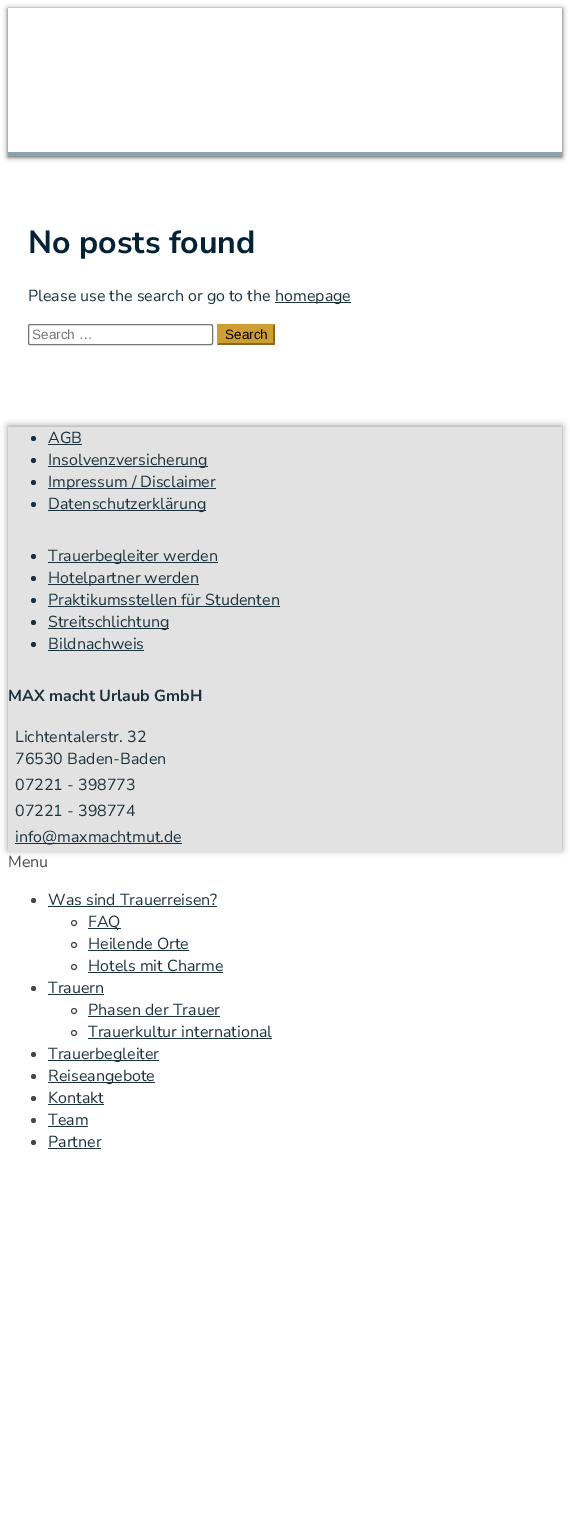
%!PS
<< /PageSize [570 1533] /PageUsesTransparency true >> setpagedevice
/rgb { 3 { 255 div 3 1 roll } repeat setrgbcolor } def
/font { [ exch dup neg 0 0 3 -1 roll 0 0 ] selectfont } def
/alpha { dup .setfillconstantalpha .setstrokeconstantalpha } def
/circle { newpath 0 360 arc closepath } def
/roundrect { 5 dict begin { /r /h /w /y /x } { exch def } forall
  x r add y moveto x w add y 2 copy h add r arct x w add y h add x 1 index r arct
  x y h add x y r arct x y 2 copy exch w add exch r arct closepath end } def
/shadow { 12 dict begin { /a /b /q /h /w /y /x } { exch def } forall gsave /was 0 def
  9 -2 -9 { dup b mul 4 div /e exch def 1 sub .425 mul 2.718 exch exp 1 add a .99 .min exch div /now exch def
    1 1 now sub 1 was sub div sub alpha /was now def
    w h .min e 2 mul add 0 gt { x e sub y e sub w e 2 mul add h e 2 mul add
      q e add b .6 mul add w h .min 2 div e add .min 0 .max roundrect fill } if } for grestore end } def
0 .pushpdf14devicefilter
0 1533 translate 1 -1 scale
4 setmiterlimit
255 255 255 rgb
0 0 570 1533 rectfill
gsave
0 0 moveto 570 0 lineto 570 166 lineto 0 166 lineto closepath 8 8 moveto 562 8 lineto 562 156 lineto 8 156 lineto closepath eoclip newpath
0 0 0 rgb
8 9 554 148 0 2.5 0.7 shadow
grestore
138 163 175 rgb
8 152 554 4 rectfill
28 51 62 rgb
275 302 76 1 rectfill
118 118 118 rgb
28.5 324.5 184 20 1.5 roundrect stroke
206 158 51 rgb
217 324 58 21 rectfill
137 105 34 rgb
275 324 moveto 275 345 lineto 273 343 lineto 273 326 lineto closepath fill
275 345 moveto 217 345 lineto 219 343 lineto 273 343 lineto closepath fill
206 158 51 rgb
217 345 moveto 217 324 lineto 219 326 lineto 219 343 lineto closepath fill
0 0 0 rgb
8 426 554 424 0 3.5 0.4 shadow
226 226 226 rgb
8 427 554 424 rectfill
28 51 62 rgb
33.5 438.5 2.5 circle fill
48 444 34 1 rectfill
33.5 460.5 2.5 circle fill
48 466 160 1 rectfill
33.5 482.5 2.5 circle fill
48 488 168 1 rectfill
33.5 504.5 2.5 circle fill
48 510 158 1 rectfill
33.5 556.5 2.5 circle fill
48 562 170 1 rectfill
33.5 578.5 2.5 circle fill
48 584 151 1 rectfill
33.5 600.5 2.5 circle fill
48 606 232 1 rectfill
33.5 622.5 2.5 circle fill
48 628 121 1 rectfill
33.5 644.5 2.5 circle fill
48 650 96 1 rectfill
15 843 167 1 rectfill
74 70 69 rgb
33.5 900.5 2.5 circle fill
28 51 62 rgb
48 906 169 1 rectfill
74 70 69 rgb
74 923 2.5 circle stroke
28 51 62 rgb
88 928 33 1 rectfill
74 70 69 rgb
74 945 2.5 circle stroke
28 51 62 rgb
88 950 101 1 rectfill
74 70 69 rgb
74 967 2.5 circle stroke
28 51 62 rgb
88 972 135 1 rectfill
74 70 69 rgb
33.5 988.5 2.5 circle fill
28 51 62 rgb
48 994 56 1 rectfill
74 70 69 rgb
74 1011 2.5 circle stroke
28 51 62 rgb
88 1016 132 1 rectfill
74 70 69 rgb
74 1033 2.5 circle stroke
28 51 62 rgb
88 1038 184 1 rectfill
74 70 69 rgb
33.5 1054.5 2.5 circle fill
28 51 62 rgb
48 1060 111 1 rectfill
74 70 69 rgb
33.5 1076.5 2.5 circle fill
28 51 62 rgb
48 1082 107 1 rectfill
74 70 69 rgb
33.5 1098.5 2.5 circle fill
28 51 62 rgb
48 1104 56 1 rectfill
74 70 69 rgb
33.5 1120.5 2.5 circle fill
28 51 62 rgb
48 1126 40 1 rectfill
74 70 69 rgb
33.5 1142.5 2.5 circle fill
28 51 62 rgb
48 1148 53 1 rectfill
/NunitoSans-Bold 32 font
3 34 53 rgb
28 253 moveto (No posts found) show
/NunitoSans-Regular 16 font
28 51 62 rgb
28 301 moveto (Please use the search or go to the) show
275 301 moveto (homepage) show
/LiberationSans-Regular 13.5 font
117 117 117 rgb
32 339 moveto (Search …) show
0 0 0 rgb
225 339 moveto (Search) show
/NunitoSans-Regular 16 font
28 51 62 rgb
[
  [(AGB) 48 443]
  [(Insolvenzversicherung) 48 465]
  [(Impressum / Disclaimer) 48 487]
  [(Datenschutzerklärung) 48 509]
  [(Trauerbegleiter werden) 48 561]
  [(Hotelpartner werden) 48 583]
  [(Praktikumsstellen für Studenten) 48 605]
  [(Streitschlichtung) 48 627]
  [(Bildnachweis) 48 649]
] { aload pop moveto show } forall
/NunitoSans-Bold 16 font
8 701 moveto (MAX macht Urlaub GmbH) show
/NunitoSans-Regular 16 font
[
  [(Lichtentalerstr. 32) 15 742]
  [(76530 Baden-Baden) 15 764]
  [(07221 - 398773) 15 790]
  [(07221 - 398774) 15 816]
  [(info@maxmachtmut.de) 15 842]
] { aload pop moveto show } forall
74 70 69 rgb
8 867 moveto (Menu) show
28 51 62 rgb
[
  [(Was sind Trauerreisen?) 48 905]
  [(FAQ) 88 927]
  [(Heilende Orte) 88 949]
  [(Hotels mit Charme) 88 971]
  [(Trauern) 48 993]
  [(Phasen der Trauer) 88 1015]
  [(Trauerkultur international) 88 1037]
  [(Trauerbegleiter) 48 1059]
  [(Reiseangebote) 48 1081]
  [(Kontakt) 48 1103]
  [(Team) 48 1125]
  [(Partner) 48 1147]
] { aload pop moveto show } forall
.poppdf14devicefilter showpage
